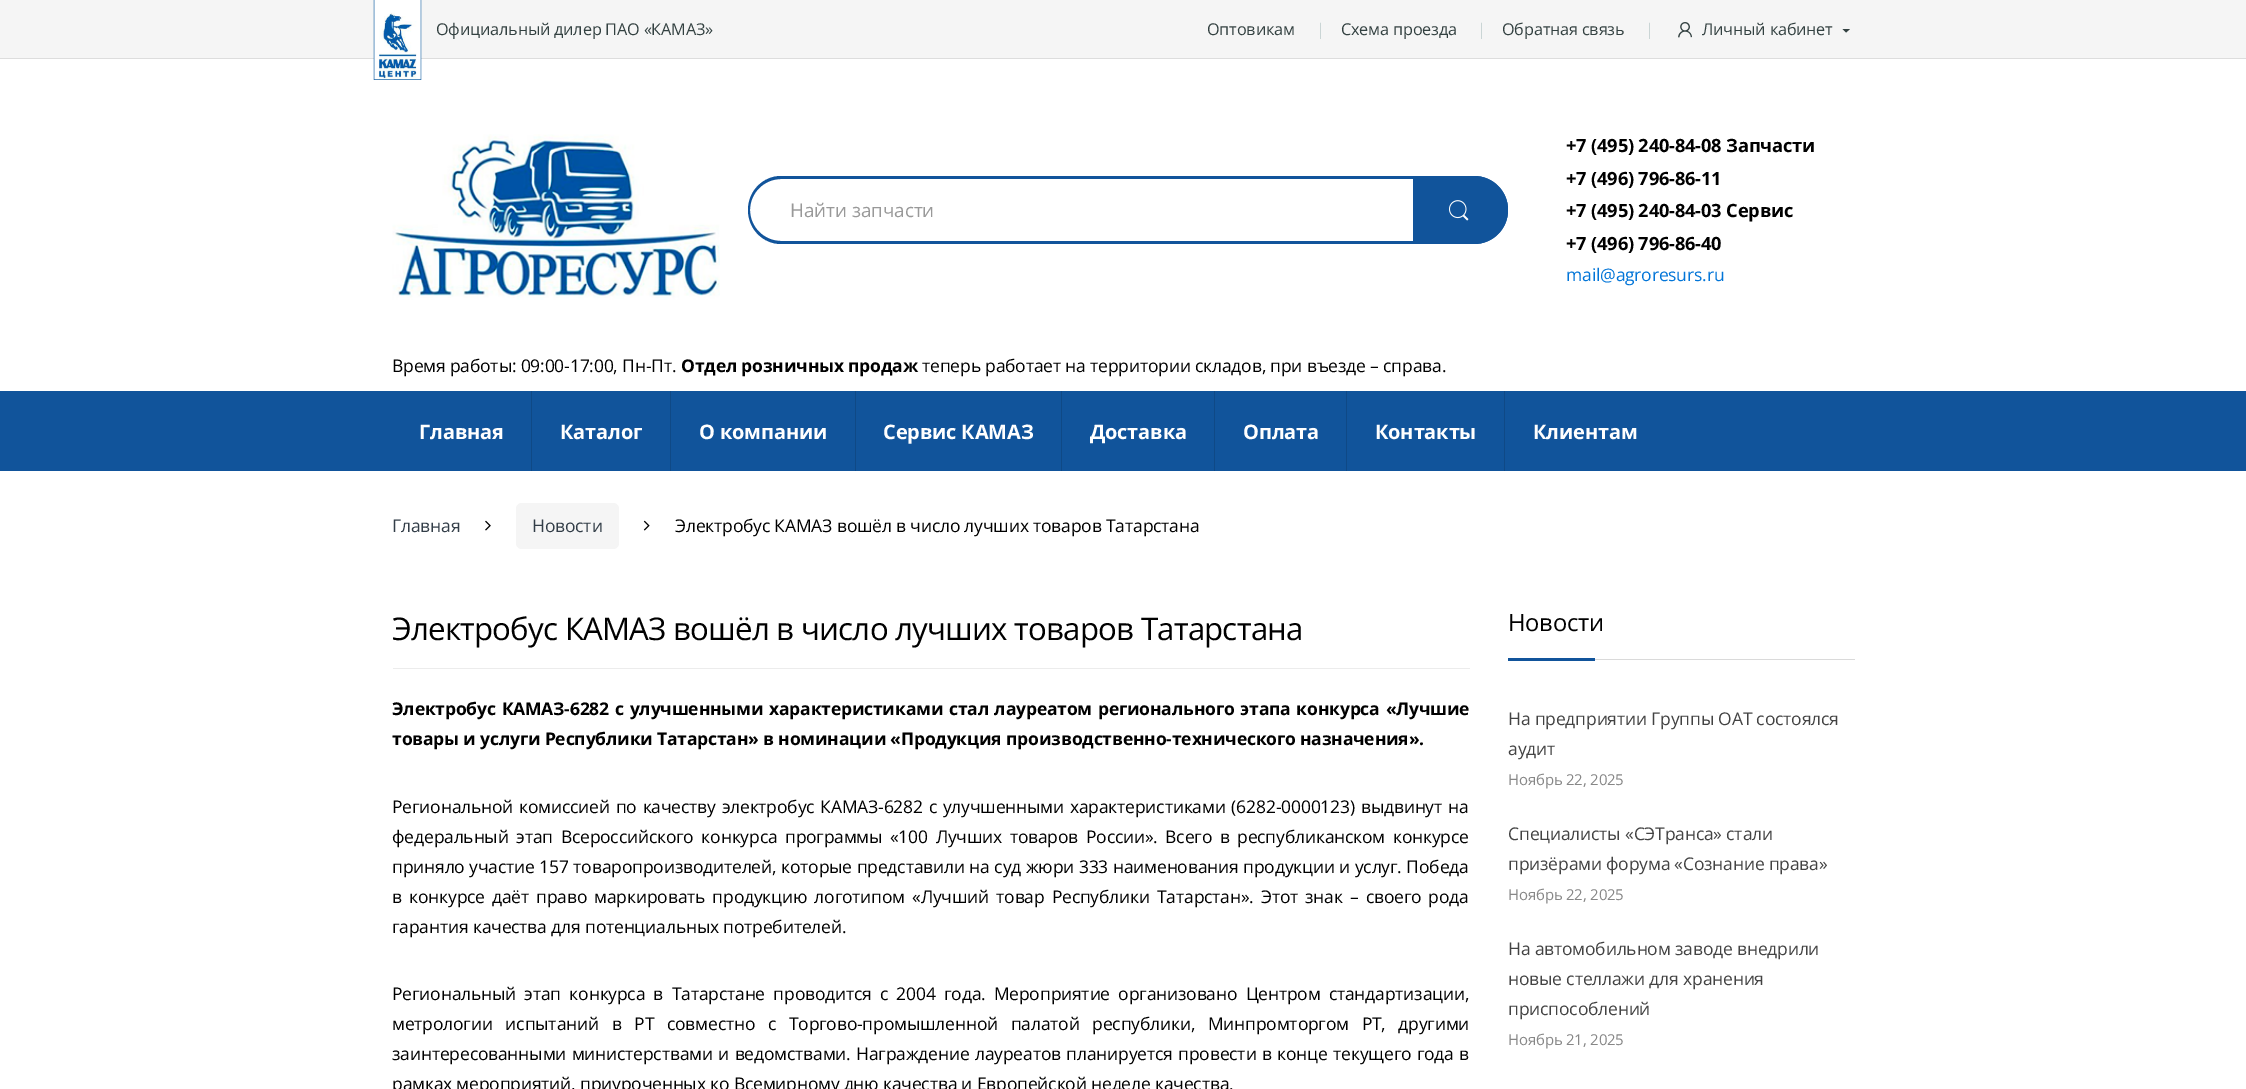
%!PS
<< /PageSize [2246 1089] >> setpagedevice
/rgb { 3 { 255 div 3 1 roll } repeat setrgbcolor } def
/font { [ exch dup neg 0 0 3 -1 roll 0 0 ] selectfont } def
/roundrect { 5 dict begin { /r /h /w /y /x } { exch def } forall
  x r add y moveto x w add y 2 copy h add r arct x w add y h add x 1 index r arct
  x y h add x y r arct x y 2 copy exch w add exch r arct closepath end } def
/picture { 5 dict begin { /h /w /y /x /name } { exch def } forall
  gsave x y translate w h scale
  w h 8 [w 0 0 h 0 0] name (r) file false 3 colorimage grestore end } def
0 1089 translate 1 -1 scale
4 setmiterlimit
255 255 255 rgb
0 0 2246 1089 rectfill
245 245 245 rgb
0 0 2246 58 rectfill
221 221 221 rgb
0 58 2246 1 rectfill
(img/1.rgb) 373 0 49 80 picture
(img/2.rgb) 1678 22 14 16 picture
51 65 65 rgb
1842.5 29 moveto 1850 29 lineto 1846 32.5 lineto closepath fill
(img/3.rgb) 392 134 328 166 picture
17 84 155 rgb
781 176 moveto 1414 176 lineto 1414 244 lineto 781 244 lineto 763 244 748 229 748 210 curveto 748 191 763 176 781 176 curveto closepath 781 179 moveto 1414 179 lineto 1414 241 lineto 781 241 lineto 764 241 750 227 750 210 curveto 750 193 764 179 781 179 curveto closepath eofill
1413 176 moveto 1474 176 lineto 1493 176 1508 191 1508 210 curveto 1508 229 1493 244 1474 244 curveto 1413 244 lineto closepath fill
1412 176 moveto 1474 176 lineto 1492 176 1508 191 1508 210 curveto 1508 229 1492 244 1474 244 curveto 1412 244 lineto closepath 1412 179 moveto 1474 179 lineto 1491 179 1505 193 1505 210 curveto 1505 227 1491 241 1474 241 curveto 1412 241 lineto closepath eofill
(img/4.rgb) 1449 200 20 21 picture
[
  [0 391 2246 80 17 84 155]
  [531 391 1 80 15 73 134]
  [670 391 1 80 15 73 134]
  [855 391 1 80 15 73 134]
  [1061 391 1 80 15 73 134]
  [1214 391 1 80 15 73 134]
  [1346 391 1 80 15 73 134]
  [1504 391 1 80 15 73 134]
] { aload pop rgb rectfill } forall
(img/5.rgb) 485 520 6 11 picture
245 245 245 rgb
516 503 103 46 6 roundrect fill
(img/6.rgb) 643 520 7 11 picture
[
  [393 668 1077 1 236 236 236]
  [1595 659 260 1 218 218 218]
  [1508 658 87 3 17 84 155]
] { aload pop rgb rectfill } forall
/OpenSans-Regular 16.25 font
51 65 65 rgb
436 35 moveto -0.18 0 (Официальный дилер ПАО «КАМАЗ») ashow
1207 35 moveto -0.18 0 (Оптовикам) ashow
202 213 213 rgb
1316 35 moveto -0.18 0 (|) ashow
51 65 65 rgb
1341 35 moveto -0.18 0 (Схема проезда) ashow
202 213 213 rgb
1477 35 moveto -0.18 0 (|) ashow
51 65 65 rgb
1502 35 moveto -0.18 0 (Обратная связь) ashow
202 213 213 rgb
1645 35 moveto -0.18 0 (|) ashow
51 65 65 rgb
1702 35 moveto -0.18 0 (Личный кабинет) ashow
/OpenSans-Regular 18.75 font
153 153 153 rgb
790 217 moveto (Найти запчасти) show
/OpenSans-Bold 18.25 font
0 0 0 rgb
1566 152 moveto -0.18 0 (+7 \(495\) 240-84-08 Запчасти) ashow
1566 185 moveto -0.18 0 (+7 \(496\) 796-86-11) ashow
1566 217 moveto -0.18 0 (+7 \(495\) 240-84-03 Сервис) ashow
1566 250 moveto -0.18 0 (+7 \(496\) 796-86-40) ashow
/OpenSans-Regular 17.5 font
2 117 216 rgb
1566 281 moveto -0.18 0 (mail@agroresurs.ru) ashow
0 0 0 rgb
392 372 moveto -0.18 0 (Время работы: 09:00-17:00, Пн-Пт.) ashow
/OpenSans-Bold 17.5 font
681 372 moveto -0.18 0 (Отдел розничных продаж) ashow
/OpenSans-Regular 17.5 font
922 372 moveto -0.18 0 (теперь работает на территории складов, при въезде – справа.) ashow
/OpenSans-Bold 20 font
255 255 255 rgb
419 439 moveto -0.18 0 (Главная) ashow
560 439 moveto -0.18 0 (Каталог) ashow
699 439 moveto -0.18 0 (О компании) ashow
883 439 moveto -0.18 0 (Cервис КАМАЗ) ashow
1090 439 moveto -0.18 0 (Доставка) ashow
1243 439 moveto -0.18 0 (Оплата) ashow
1375 439 moveto -0.18 0 (Контакты) ashow
1533 439 moveto -0.18 0 (Клиентам) ashow
/OpenSans-Regular 17.5 font
51 62 72 rgb
392 532 moveto -0.18 0 (Главная) ashow
532 532 moveto -0.18 0 (Новости) ashow
0 0 0 rgb
675 532 moveto -0.18 0 (Электробус КАМАЗ вошёл в число лучших товаров Татарстана) ashow
/OpenSans-Regular 31.25 font
392 640 moveto -0.78 0 (Электробус КАМАЗ вошёл в число лучших товаров Татарстана) ashow
/OpenSans-Bold 17.5 font
392 715 moveto 1.5 0 32 -0.18 0 (Электробус КАМАЗ-6282 с улучшенными характеристиками стал лауреатом регионального этапа конкурса «Лучшие) awidthshow
392 745 moveto -0.18 0 (товары и услуги Республики Татарстан» в номинации «Продукция производственно-технического назначения».) ashow
/OpenSans-Regular 17.5 font
392 813 moveto 1.5 0 32 -0.18 0 (Региональной комиссией по качеству электробус КАМАЗ-6282 с улучшенными характеристиками \(6282-0000123\) выдвинут на) awidthshow
392 843 moveto 3.25 0 32 -0.18 0 (федеральный этап Всероссийского конкурса программы «100 Лучших товаров России». Всего в республиканском конкурсе) awidthshow
392 873 moveto 0.25 0 32 -0.18 0 (приняло участие 157 товаропроизводителей, которые представили на суд жюри 333 наименования продукции и услуг. Победа) awidthshow
392 903 moveto 2.75 0 32 -0.18 0 (в конкурсе даёт право маркировать продукцию логотипом «Лучший товар Республики Татарстан». Этот знак – своего рода) awidthshow
392 933 moveto -0.18 0 (гарантия качества для потенциальных потребителей.) ashow
392 1000 moveto 3.9 0 32 -0.18 0 (Региональный этап конкурса в Татарстане проводится с 2004 года. Мероприятие организовано Центром стандартизации,) awidthshow
392 1030 moveto 8.4 0 32 -0.18 0 (метрологии испытаний в РТ совместно с Торгово-промышленной палатой республики, Минпромторгом РТ, другими) awidthshow
392 1060 moveto 1.1 0 32 -0.18 0 (заинтересованными министерствами и ведомствами. Награждение лауреатов планируется провести в конце текущего года в) awidthshow
392 1090 moveto -0.18 0 (рамках мероприятий, приуроченных ко Всемирному дню качества и Европейской неделе качества.) ashow
/OpenSans-Regular 23.75 font
1508 631 moveto -0.18 0 (Новости) ashow
/OpenSans-Regular 17.5 font
67 67 67 rgb
1508 725 moveto -0.18 0 (На предприятии Группы ОАТ состоялся) ashow
1508 755 moveto -0.18 0 (аудит) ashow
/OpenSans-Regular 15 font
135 135 135 rgb
1508 785 moveto -0.18 0 (Ноябрь 22, 2025) ashow
/OpenSans-Regular 17.5 font
67 67 67 rgb
1508 840 moveto -0.18 0 (Специалисты «СЭТранса» стали) ashow
1508 870 moveto -0.18 0 (призёрами форума «Сознание права») ashow
/OpenSans-Regular 15 font
135 135 135 rgb
1508 900 moveto -0.18 0 (Ноябрь 22, 2025) ashow
/OpenSans-Regular 17.5 font
67 67 67 rgb
1508 955 moveto -0.18 0 (На автомобильном заводе внедрили) ashow
1508 985 moveto -0.18 0 (новые стеллажи для хранения) ashow
1508 1015 moveto -0.18 0 (приспособлений) ashow
/OpenSans-Regular 15 font
135 135 135 rgb
1508 1045 moveto -0.18 0 (Ноябрь 21, 2025) ashow
showpage
